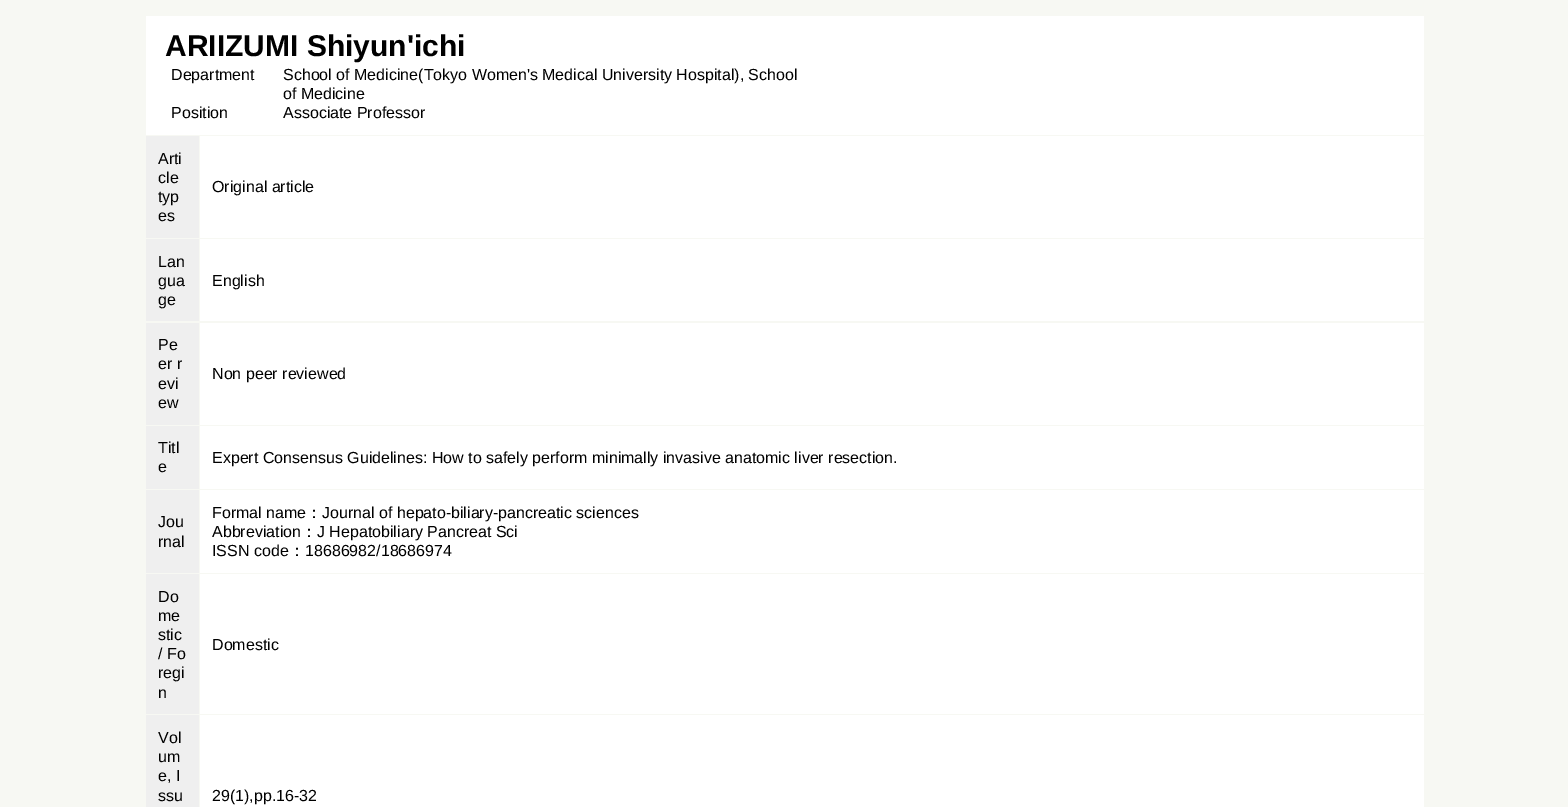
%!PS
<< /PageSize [1568 807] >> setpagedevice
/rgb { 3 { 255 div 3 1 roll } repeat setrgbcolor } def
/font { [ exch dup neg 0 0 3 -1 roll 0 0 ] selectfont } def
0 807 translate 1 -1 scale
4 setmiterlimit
247 248 243 rgb
0 0 1568 807 rectfill
[
  [146 16 1278 119 255 255 255]
  [146 136 53 102 239 239 239]
  [200 136 1224 102 255 255 255]
  [146 239 53 82 239 239 239]
  [200 239 1224 82 255 255 255]
  [146 323 53 102 239 239 239]
  [200 323 1224 102 255 255 255]
  [146 426 53 63 239 239 239]
  [200 426 1224 63 255 255 255]
  [146 490 53 83 239 239 239]
  [200 490 1224 83 255 255 255]
  [146 574 53 140 239 239 239]
  [200 574 1224 140 255 255 255]
  [146 715 53 92 239 239 239]
  [200 715 1224 92 255 255 255]
] { aload pop rgb rectfill } forall
/LiberationSans-Bold 30 font
0 0 0 rgb
165 56 moveto (ARIIZUMI Shiyun'ichi) show
/LiberationSans-Regular 16 font
[
  [(Department) 171 80]
  [(School of Medicine\(Tokyo Women's Medical University Hospital\), School) 283 80]
  [(of Medicine) 283 99]
  [(Position) 171 118]
  [(Associate Professor) 283 118]
  [(Arti) 158 164]
  [(cle) 158 183]
  [(typ) 158 202]
  [(es) 158 221]
  [(Original article) 212 192]
  [(Lan) 158 267]
  [(gua) 158 286]
  [(ge) 158 305]
  [(English) 212 286]
  [(Pe) 158 350]
  [(er r) 158 369]
  [(evi) 158 389]
  [(ew) 158 408]
  [(Non peer reviewed) 212 379]
  [(Titl) 158 453]
  [(e) 158 472]
  [(Expert Consensus Guidelines: How to safely perform minimally invasive anatomic liver resection.) 212 463]
  [(Jou) 158 527]
  [(rnal) 158 547]
  [(Formal name) 212 518]
] { aload pop moveto show } forall
/WenQuanYiZenHei-Medium 16 font
306 518 moveto (：) show
/LiberationSans-Regular 16 font
322 518 moveto (Journal of hepato-biliary-pancreatic sciences) show
212 537 moveto (Abbreviation) show
/WenQuanYiZenHei-Medium 16 font
301 537 moveto (：) show
/LiberationSans-Regular 16 font
317 537 moveto (J Hepatobiliary Pancreat Sci) show
212 556 moveto (ISSN code) show
/WenQuanYiZenHei-Medium 16 font
289 556 moveto (：) show
/LiberationSans-Regular 16 font
[
  [(18686982/18686974) 305 556]
  [(Do) 158 602]
  [(me) 158 621]
  [(stic) 158 640]
  [(/ Fo) 158 659]
  [(regi) 158 678]
  [(n) 158 698]
  [(Domestic) 212 650]
  [(Vol) 158 743]
  [(um) 158 762]
  [(e, I) 158 781]
  [(ssu) 158 801]
  [(29\(1\),pp.16-32) 212 801]
] { aload pop moveto show } forall
showpage
